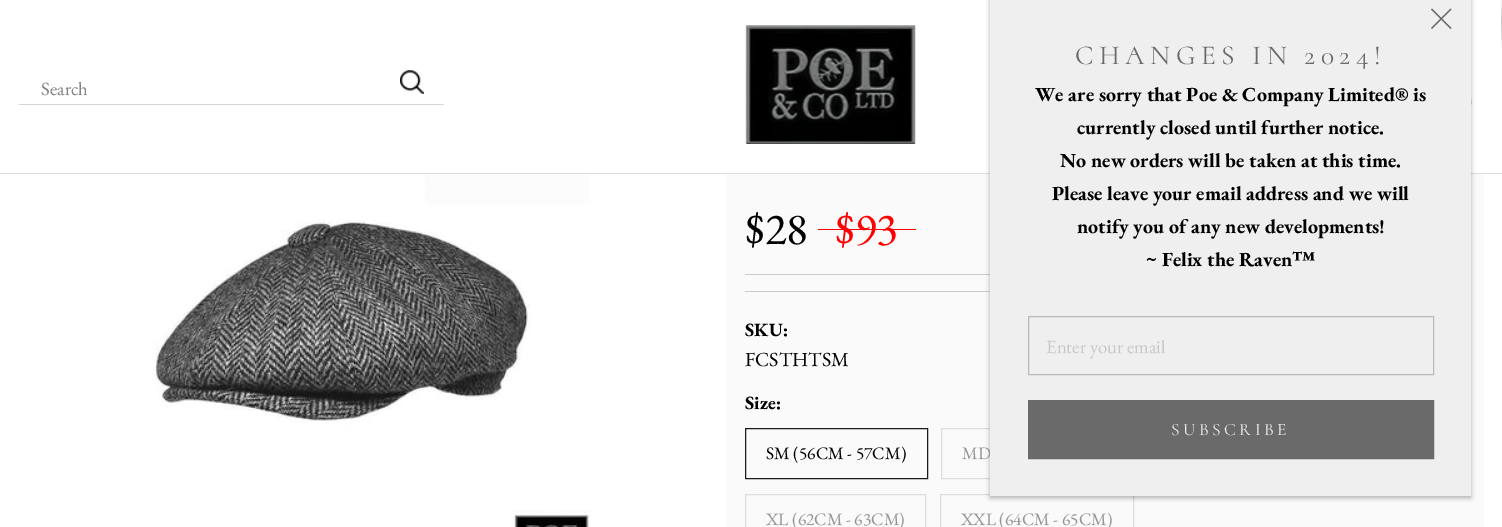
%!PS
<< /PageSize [1502 527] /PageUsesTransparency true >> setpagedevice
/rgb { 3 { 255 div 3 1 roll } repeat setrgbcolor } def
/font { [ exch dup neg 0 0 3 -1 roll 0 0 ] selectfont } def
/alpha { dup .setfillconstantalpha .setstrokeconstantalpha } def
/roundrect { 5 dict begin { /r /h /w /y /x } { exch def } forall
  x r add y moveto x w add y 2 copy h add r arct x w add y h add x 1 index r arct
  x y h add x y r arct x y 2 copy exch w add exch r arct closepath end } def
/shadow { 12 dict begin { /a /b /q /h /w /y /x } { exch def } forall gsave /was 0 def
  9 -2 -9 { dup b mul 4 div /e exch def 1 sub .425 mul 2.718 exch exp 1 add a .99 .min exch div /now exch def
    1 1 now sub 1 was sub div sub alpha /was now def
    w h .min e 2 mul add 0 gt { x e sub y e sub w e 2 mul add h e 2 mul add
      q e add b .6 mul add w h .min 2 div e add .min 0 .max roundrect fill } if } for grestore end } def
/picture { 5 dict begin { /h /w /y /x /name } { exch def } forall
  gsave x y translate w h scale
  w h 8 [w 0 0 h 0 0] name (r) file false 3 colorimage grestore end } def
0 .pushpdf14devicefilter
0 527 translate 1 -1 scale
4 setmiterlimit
255 255 255 rgb
0 0 1502 527 rectfill
221 221 221 rgb
0 173 1502 1 rectfill
214 214 215 rgb
19 104 425 1 rectfill
(img/1.rgb) 400 70 24 24 picture
(img/2.rgb) 745 25 171 119 picture
gsave 1501 0 moveto 1502 0 lineto 1502 49 lineto 1501 49 lineto closepath clip newpath
<< /ShadingType 2 /ColorSpace /DeviceRGB /Coords [1502 -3.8 1502 49] /Extend [true true] /Function << /FunctionType 3 /Domain [0 1] /Functions [<< /FunctionType 2 /Domain [0 1] /C0 [1 1 1] /C1 [0.784 0.78 0.776] /N 1 >> << /FunctionType 2 /Domain [0 1] /C0 [0.784 0.78 0.776] /C1 [1 1 1] /N 1 >>] /Bounds [0.5] /Encode [0 1 0 1] >> >> shfill grestore
(img/3.rgb) 1471 97 1 8 picture
(img/4.rgb) 101 174 490 353 picture
[
  [726 174 758 353 250 250 250]
  [745 274 245 1 204 204 204]
  [818 229 98 1 255 0 0]
  [745 291 245 1 204 204 204]
] { aload pop rgb rectfill } forall
28 27 27 rgb
745.5 428.5 182 50 rectstroke
221 221 221 rgb
941.5 428.5 187 50 rectstroke
745.5 494.5 180 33 rectstroke
940.5 494.5 193 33 rectstroke
0 0 0 rgb
990 -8 481 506 0 2.5 0.3 shadow
/EBGaramond-Regular 18.75 font
128 128 128 rgb
41 95 moveto (Search) show
/EBGaramond-Regular 45 font
0 0 0 rgb
745 244 moveto ($28) show
255 0 0 rgb
835 244 moveto ($93) show
/EBGaramond-Bold 18.75 font
0 0 0 rgb
745 336 moveto (SKU:) show
/EBGaramond-Regular 20 font
745 366 moveto (FCSTHTSM) show
/EBGaramond-Bold 18.75 font
745 409 moveto (Size:) show
/EBGaramond-Regular 17.5 font
766 459 moveto (SM \(56CM - 57CM\)) show
149 149 149 rgb
[
  [(MD) 962 459]
  [(XL \(62CM - 63CM\)) 766 525]
  [(XXL \(64CM - 65CM\)) 961 525]
] { aload pop moveto show } forall
239 239 239 rgb
990 0 481 496 rectfill
106 106 106 rgb
1.4 setlinewidth
1451 9 moveto 1431.5 28.5 lineto 1451 28.5 moveto 1431.5 9 lineto stroke
/Cormorant-Regular 27.5 font
1075 64 moveto 5.5 0 (CHANGES IN 2024!) ashow
/EBGaramond-Bold 20 font
0 0 0 rgb
[
  [(We are sorry that Poe & Company Limited® is) 1035 101]
  [(currently closed until further notice.) 1077 134]
  [(No new orders will be taken at this time.) 1060 167]
  [(Please leave your email address and we will) 1052 200]
  [(notify you of any new developments!) 1077 233]
  [(~ Felix the Raven™) 1146 266]
] { aload pop moveto show } forall
186 186 186 rgb
1 setlinewidth
1028.5 316.5 405 58 rectstroke
/EBGaramond-Regular 18.75 font
199 199 199 rgb
1046 353 moveto (Enter your email) show
106 106 106 rgb
1028.5 400.5 405 58 rectstroke
1029 401 404 57 rectfill
/Cormorant-Regular 17.5 font
239 239 239 rgb
1171 435 moveto 3.5 0 (SUBSCRIBE) ashow
.poppdf14devicefilter showpage
